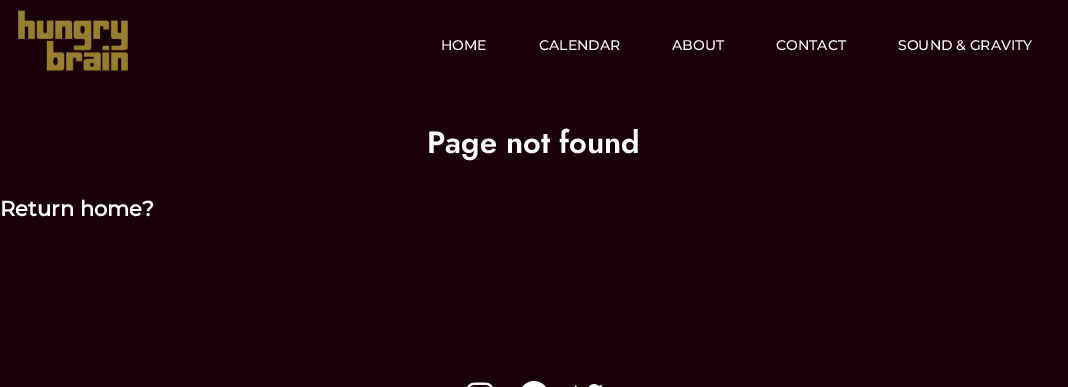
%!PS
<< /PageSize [1068 387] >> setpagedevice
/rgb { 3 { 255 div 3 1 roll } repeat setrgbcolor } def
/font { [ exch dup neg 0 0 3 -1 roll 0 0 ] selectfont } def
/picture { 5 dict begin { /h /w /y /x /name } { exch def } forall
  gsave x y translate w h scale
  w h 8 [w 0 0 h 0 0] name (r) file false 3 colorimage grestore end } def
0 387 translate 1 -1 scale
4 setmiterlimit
26 0 10 rgb
0 0 1068 387 rectfill
(img/1.rgb) 18 10 110 62 picture
(img/2.rgb) 467 382 26 5 picture
(img/3.rgb) 522 381 24 6 picture
(img/4.rgb) 574 384 29 3 picture
/Montserrat-Medium 14 font
255 255 255 rgb
[
  [(HOME) 441 50]
  [(CALENDAR) 539 50]
  [(ABOUT) 672 50]
  [(CONTACT) 776 50]
  [(SOUND & GRAVITY) 898 50]
] { aload pop moveto show } forall
/Jost-SemiBold 30.75 font
427 153 moveto (Page not found) show
/Montserrat-Bold 21 font
0 216 moveto (Return home?) show
showpage
